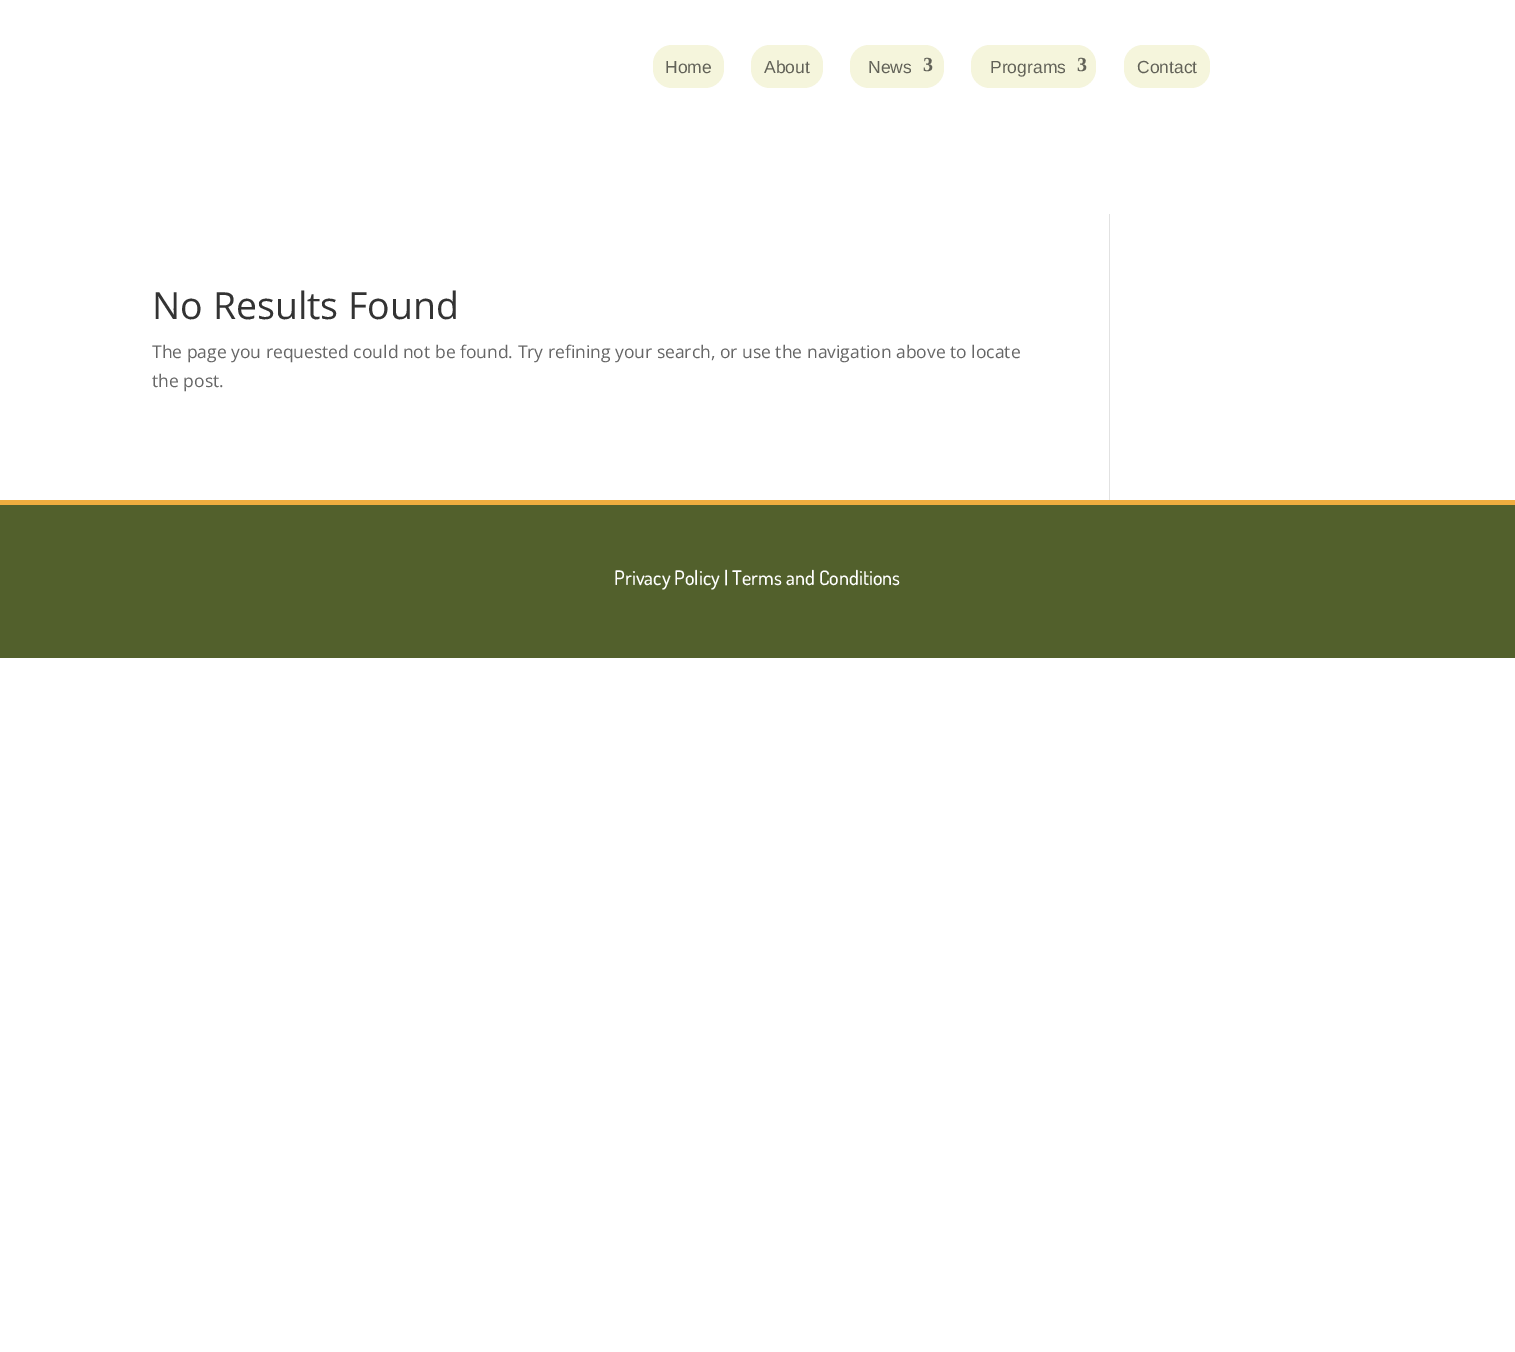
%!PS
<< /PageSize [1515 1352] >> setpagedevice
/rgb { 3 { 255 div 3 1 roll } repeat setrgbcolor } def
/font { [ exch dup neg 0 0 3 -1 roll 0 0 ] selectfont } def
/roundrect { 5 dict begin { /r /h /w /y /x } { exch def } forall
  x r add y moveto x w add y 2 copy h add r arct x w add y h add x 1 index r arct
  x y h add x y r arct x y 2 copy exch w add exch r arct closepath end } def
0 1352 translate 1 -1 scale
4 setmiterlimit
255 255 255 rgb
0 0 1515 1352 rectfill
245 245 220 rgb
653 45 71 43 19 roundrect fill
751 45 72 43 19 roundrect fill
850 45 94 43 19 roundrect fill
971 45 125 43 19 roundrect fill
1124 45 86 43 19 roundrect fill
[
  [1109 214 1 286 226 226 226]
  [0 505 1515 153 82 96 44]
  [0 500 1515 5 239 173 63]
] { aload pop rgb rectfill } forall
/LiberationSans-Regular 17.5 font
98 98 88 rgb
[
  [(Home) 665 73]
  [(About) 764 73]
  [(News) 868 73]
] { aload pop moveto show } forall
/LiberationSerif-Bold 20 font
923 71 moveto (3) show
/LiberationSans-Regular 17.5 font
990 73 moveto (Programs) show
/LiberationSerif-Bold 20 font
1077 71 moveto (3) show
/LiberationSans-Regular 17.5 font
1137 73 moveto (Contact) show
/OpenSans-Regular 37.5 font
51 51 51 rgb
152 319 moveto (No Results Found) show
/OpenSans-Regular 17.5 font
102 102 102 rgb
152 358 moveto (The page you requested could not be found. Try refining your search, or use the navigation above to locate) show
152 387 moveto (the post.) show
/Dosis-Medium 20 font
255 255 255 rgb
614 585 moveto (Privacy Policy | Terms and Conditions) show
showpage
